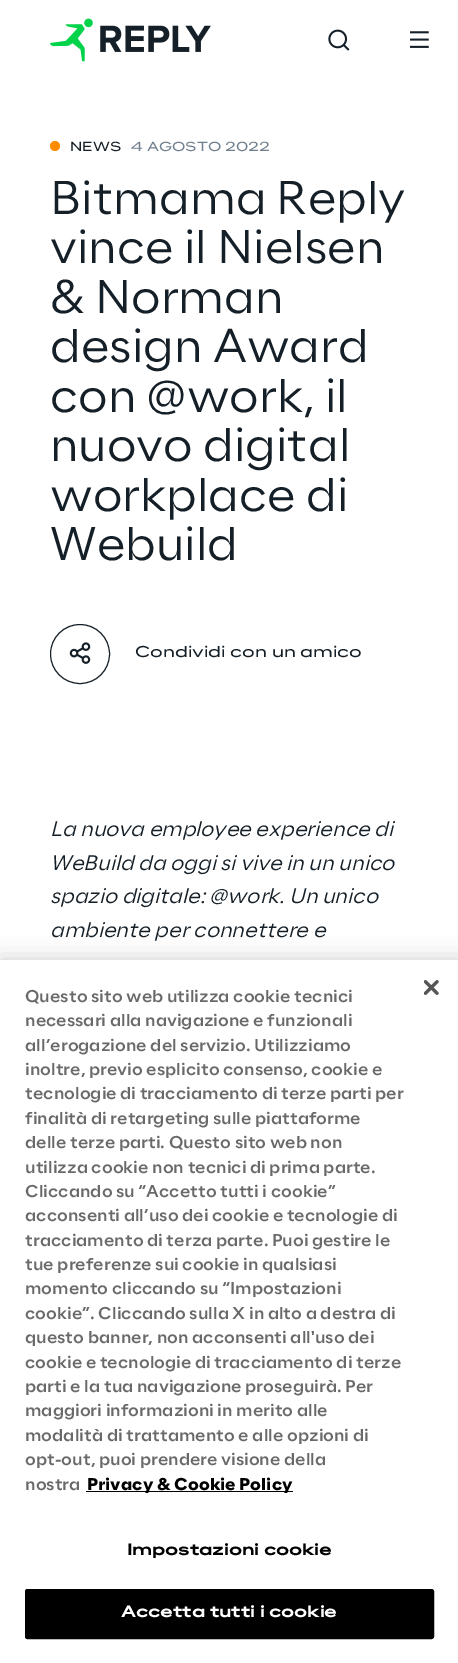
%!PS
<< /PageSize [458 1663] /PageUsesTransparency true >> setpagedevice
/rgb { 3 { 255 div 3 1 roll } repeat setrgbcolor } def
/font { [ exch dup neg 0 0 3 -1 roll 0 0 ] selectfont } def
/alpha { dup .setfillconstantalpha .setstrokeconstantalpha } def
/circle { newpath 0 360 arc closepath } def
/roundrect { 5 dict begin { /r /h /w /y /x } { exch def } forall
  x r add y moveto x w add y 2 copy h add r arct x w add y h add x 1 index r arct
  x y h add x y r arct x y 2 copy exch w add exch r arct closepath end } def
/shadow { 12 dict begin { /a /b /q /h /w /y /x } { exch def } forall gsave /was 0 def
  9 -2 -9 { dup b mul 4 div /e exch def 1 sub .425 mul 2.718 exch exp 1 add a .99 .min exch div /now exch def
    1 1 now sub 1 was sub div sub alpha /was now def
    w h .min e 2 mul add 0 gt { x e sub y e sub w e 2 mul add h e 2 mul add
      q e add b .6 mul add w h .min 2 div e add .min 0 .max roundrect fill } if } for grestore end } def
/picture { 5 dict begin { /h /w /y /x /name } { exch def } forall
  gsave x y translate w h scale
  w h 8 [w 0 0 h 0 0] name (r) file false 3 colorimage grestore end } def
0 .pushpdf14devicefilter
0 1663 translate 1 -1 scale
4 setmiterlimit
255 255 255 rgb
0 0 458 1663 rectfill
(img/1.rgb) 50 18 161 44 picture
(img/2.rgb) 328 29 22 22 picture
(img/3.rgb) 410 31 19 17 picture
255 140 0 rgb
55 146 5 circle fill
21 31 39 rgb
80 654 29.5 circle stroke
(img/4.rgb) 69 642 22 22 picture
0 0 0 rgb
0 960 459 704 0 11 0.2 shadow
255 255 255 rgb
0 960 458 703 rectfill
(img/5.rgb) 424 980 15 15 picture
0 0 0 rgb
86 1491 207 1 rectfill
25.5 1589.5 408 49 2 roundrect gsave fill grestore
stroke
/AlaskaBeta-Regular 12.5 font
21 31 39 rgb
70 151 moveto (NEWS) show
113 128 142 rgb
131 151 moveto (4 AGOSTO 2022) show
/AlaskaBeta-Light 45 font
21 31 39 rgb
[
  [(Bitmama Reply) 50 214]
  [(vince il Nielsen) 50 263]
  [(& Norman) 50 313]
  [(design Award) 50 362]
  [(con @work, il) 50 412]
  [(nuovo digital) 50 461]
  [(workplace di) 50 511]
  [(Webuild) 50 560]
] { aload pop moveto show } forall
/AlaskaBeta-Regular 15 font
135 657 moveto (Condividi con un amico) show
/AlaskaBeta-LightItalic 20 font
[
  [(La nuova employee experience di) 50 836]
  [(WeBuild da oggi si vive in un unico) 50 870]
  [(spazio digitale: @work. Un unico) 50 903]
  [(ambiente per connettere e) 50 937]
] { aload pop moveto show } forall
/AlaskaBeta-Medium 16.25 font
105 105 105 rgb
[
  [(Questo sito web utilizza cookie tecnici) 25 1002]
  [(necessari alla navigazione e funzionali) 25 1026]
  [(all’erogazione del servizio. Utilizziamo) 25 1051]
  [(inoltre, previo esplicito consenso, cookie e) 25 1075]
  [(tecnologie di tracciamento di terze parti per) 25 1099]
  [(finalità di retargeting sulle piattaforme) 25 1124]
  [(delle terze parti. Questo sito web non) 25 1148]
  [(utilizza cookie non tecnici di prima parte.) 25 1173]
  [(Cliccando su “Accetto tutti i cookie”) 25 1197]
  [(acconsenti all’uso dei cookie e tecnologie di) 25 1221]
  [(tracciamento di terza parte. Puoi gestire le) 25 1246]
  [(tue preferenze sui cookie in qualsiasi) 25 1270]
  [(momento cliccando su “Impostazioni) 25 1294]
  [(cookie”. Cliccando sulla X in alto a destra di) 25 1319]
  [(questo banner, non acconsenti all'uso dei) 25 1343]
  [(cookie e tecnologie di tracciamento di terze) 25 1368]
  [(parti e la tua navigazione proseguirà. Per) 25 1392]
  [(maggiori informazioni in merito alle) 25 1416]
  [(modalità di trattamento e alle opzioni di) 25 1441]
  [(opt-out, puoi prendere visione della) 25 1465]
  [(nostra) 25 1490]
] { aload pop moveto show } forall
/AlaskaBeta-Bold 16.25 font
0 0 0 rgb
87 1490 moveto (Privacy & Cookie Policy) show
/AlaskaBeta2-Bold 15 font
127 1555 moveto 0.15 0 (Impostazioni cookie) ashow
255 255 255 rgb
121 1617 moveto 0.15 0 (Accetta tutti i cookie) ashow
.poppdf14devicefilter showpage
